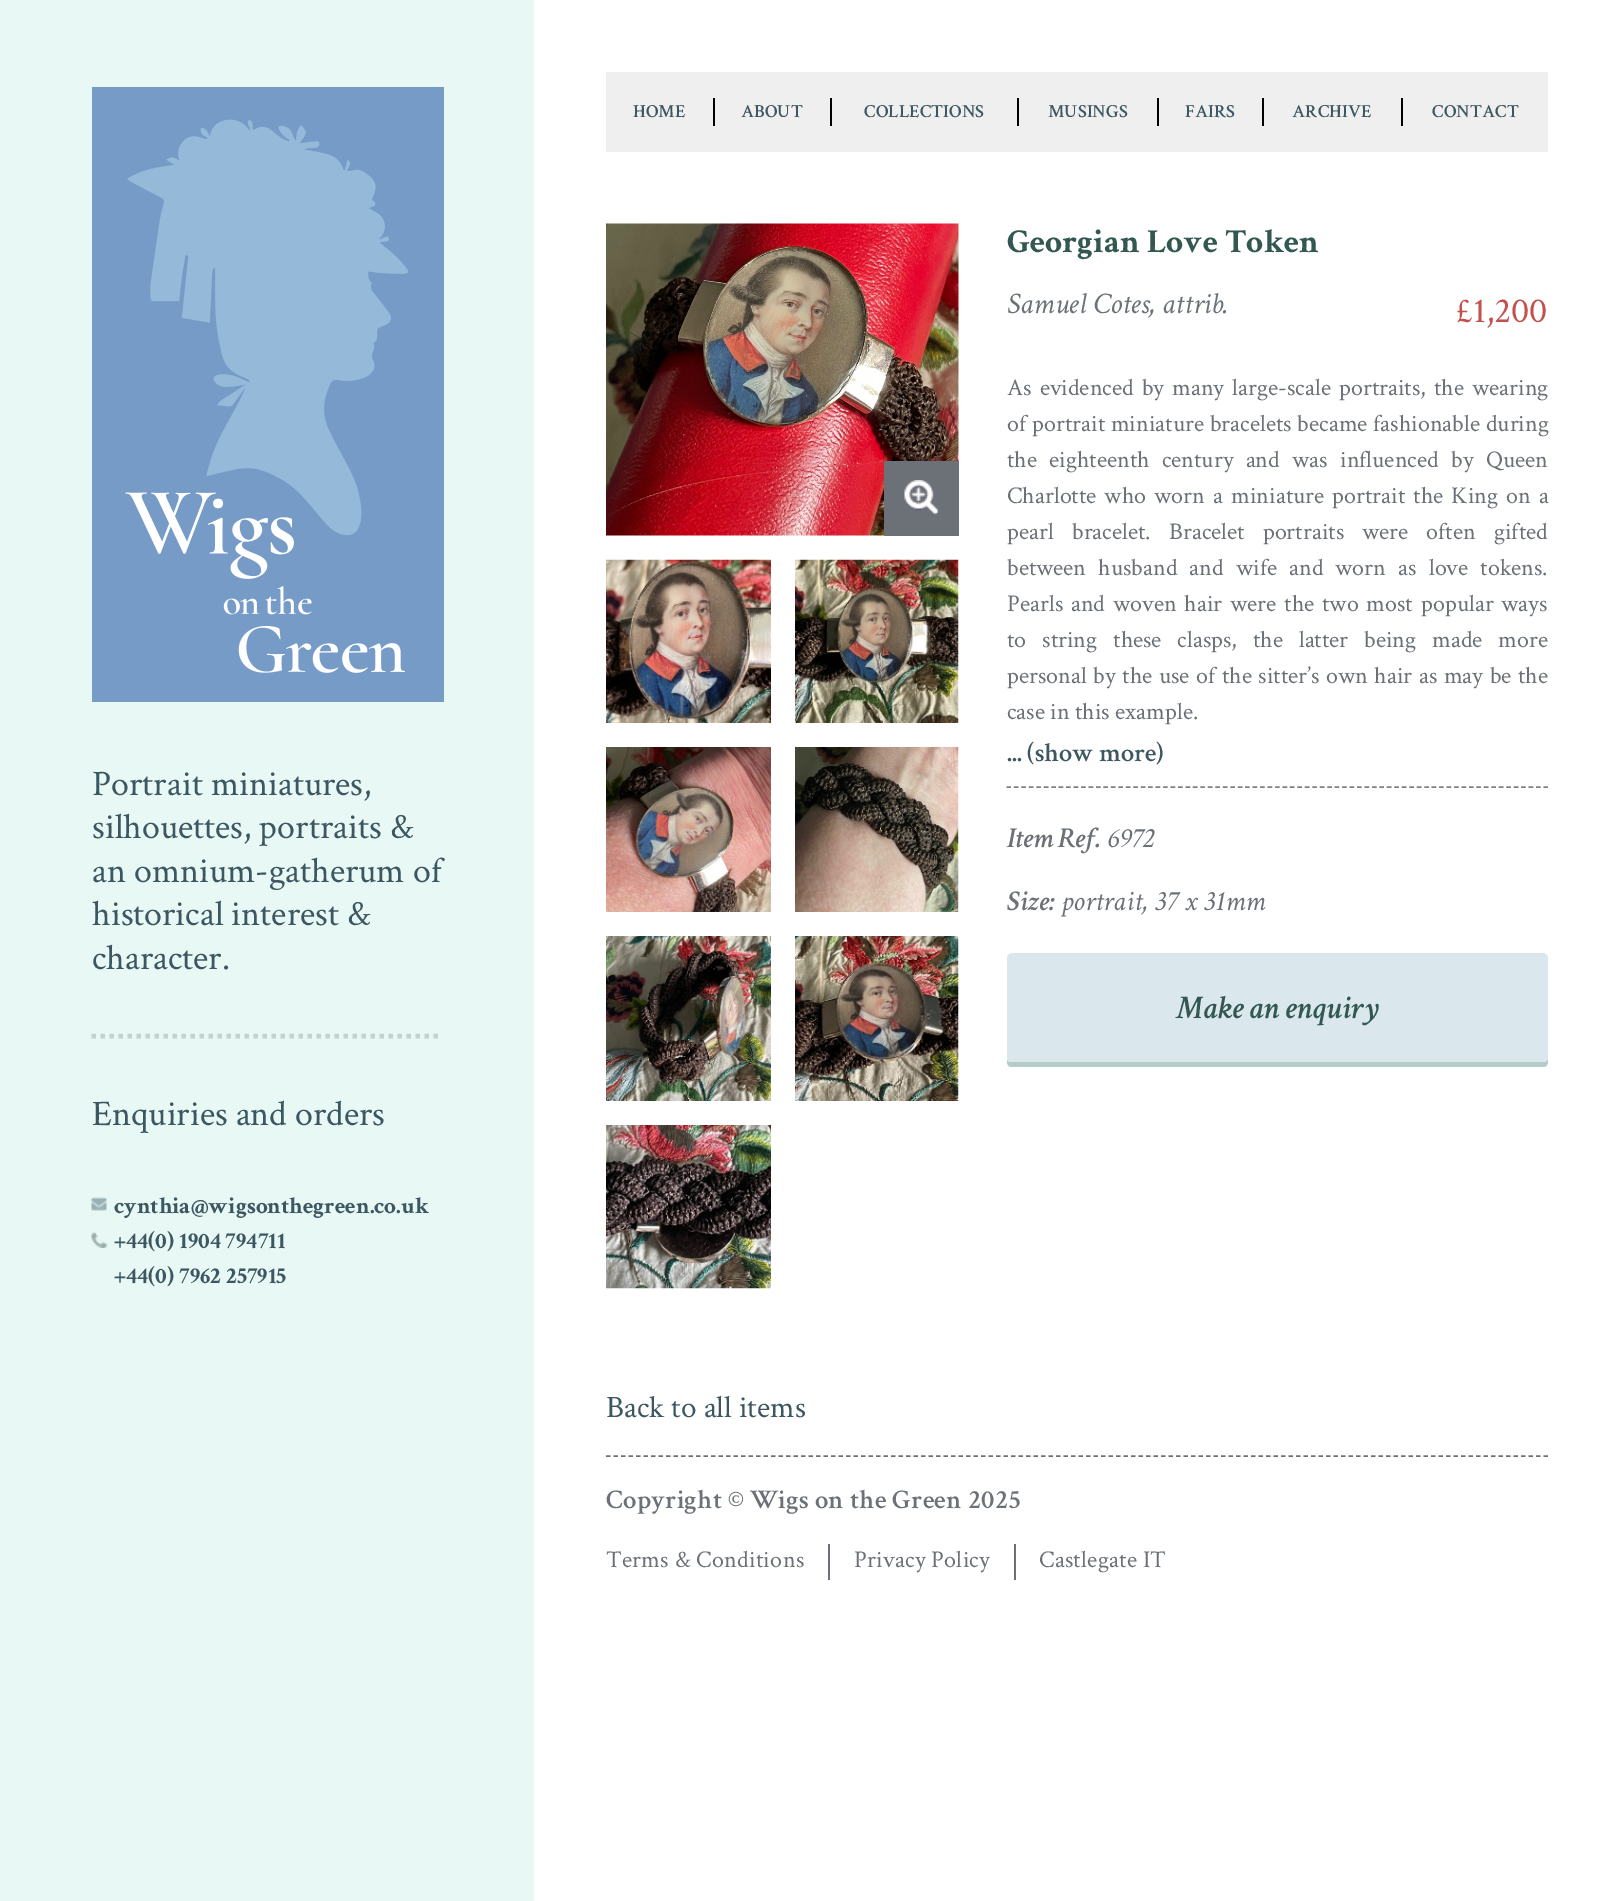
%!PS
<< /PageSize [1619 1901] >> setpagedevice
/rgb { 3 { 255 div 3 1 roll } repeat setrgbcolor } def
/font { [ exch dup neg 0 0 3 -1 roll 0 0 ] selectfont } def
/roundrect { 5 dict begin { /r /h /w /y /x } { exch def } forall
  x r add y moveto x w add y 2 copy h add r arct x w add y h add x 1 index r arct
  x y h add x y r arct x y 2 copy exch w add exch r arct closepath end } def
/picture { 5 dict begin { /h /w /y /x /name } { exch def } forall
  gsave x y translate w h scale
  w h 8 [w 0 0 h 0 0] name (r) file false 3 colorimage grestore end } def
0 1901 translate 1 -1 scale
4 setmiterlimit
255 255 255 rgb
0 0 1619 1901 rectfill
231 248 245 rgb
0 0 534 1901 rectfill
(img/1.rgb) 92 87 352 615 picture
196 211 208 rgb
4.5 setlinewidth
[4.5 4.5] 0 setdash
91.5 1036 moveto 442.5 1036 lineto stroke
(img/2.rgb) 91 1197 16 14 picture
(img/3.rgb) 91 1231 17 17 picture
[
  [606 72 942 80 239 239 239]
  [713 98 2 28 0 0 0]
  [830 98 2 28 0 0 0]
  [1017 98 2 28 0 0 0]
  [1157 98 2 28 0 0 0]
  [1262 98 2 28 0 0 0]
  [1401 98 2 28 0 0 0]
] { aload pop rgb rectfill } forall
(img/4.rgb) 606 223 353 313 picture
108 112 119 rgb
884 461 75 75 rectfill
(img/5.rgb) 904 480 35 36 picture
(img/6.rgb) 606 559 165 164 picture
(img/7.rgb) 795 559 164 164 picture
(img/8.rgb) 606 747 165 165 picture
(img/9.rgb) 795 747 164 165 picture
(img/10.rgb) 606 936 165 165 picture
(img/11.rgb) 795 936 164 165 picture
(img/12.rgb) 606 1125 165 164 picture
128 128 128 rgb
1.5 setlinewidth
[4.5 2.96] 0 setdash
1006.5 787 moveto 1548 787 lineto stroke
181 205 201 rgb
1007 1060 moveto 1007 1062 lineto 1007 1065 1009 1067 1012 1067 curveto 1543 1067 lineto 1546 1067 1548 1065 1548 1062 curveto 1548 1058 lineto 1548 1060 1546 1062 1544 1062 curveto 1011 1062 lineto 1009 1062 1008 1061 1007 1060 curveto closepath fill
218 232 237 rgb
1007 953 541 109 5 roundrect fill
108 112 119 rgb
[4.5 3] 0 setdash
606 1456 moveto 1548 1456 lineto stroke
828 1544 2 36 rectfill
1014 1544 2 36 rectfill
/CrimsonText-Regular 36 font
60 87 97 rgb
[
  [(Portrait miniatures,) 92 795]
  [(silhouettes, portraits &) 92 838]
  [(an omnium-gatherum of) 92 882]
  [(historical interest &) 92 925]
  [(character.) 92 969]
  [(Enquiries and orders) 92 1125]
] { aload pop moveto show } forall
/CrimsonText-Bold 23.25 font
[
  [(cynthia@wigsonthegreen.co.uk) 114 1213]
  [(+44\(0\) 1904 794711) 114 1248]
  [(+44\(0\) 7962 257915) 114 1283]
] { aload pop moveto show } forall
/CrimsonText-SemiBold 18.5 font
[
  [(HOME) 633 117]
  [(ABOUT) 741 117]
  [(COLLECTIONS) 864 117]
  [(MUSINGS) 1048 117]
  [(FAIRS) 1185 117]
  [(ARCHIVE) 1292 117]
  [(CONTACT) 1432 117]
] { aload pop moveto show } forall
/CrimsonText-Bold 33.5 font
51 87 81 rgb
1007 252 moveto (Georgian Love Token) show
/CrimsonText-Italic 30 font
108 113 119 rgb
1007 313 moveto (Samuel Cotes, attrib.) show
/CrimsonText-Regular 36 font
195 80 77 rgb
1456 322 moveto (£1,200) show
/CrimsonText-Regular 24 font
108 113 119 rgb
1007 395 moveto 2.75 0 32 (As evidenced by many large-scale portraits, the wearing) widthshow
1007 431 moveto 0.5 0 32 (of portrait miniature bracelets became fashionable during) widthshow
1007 467 moveto 7 0 32 (the eighteenth century and was influenced by Queen) widthshow
1007 503 moveto 2.75 0 32 (Charlotte who worn a miniature portrait the King on a) widthshow
1007 539 moveto 12.75 0 32 (pearl bracelet. Bracelet portraits were often gifted) widthshow
1007 575 moveto 6.75 0 32 (between husband and wife and worn as love tokens.) widthshow
1007 611 moveto 2.5 0 32 (Pearls and woven hair were the two most popular ways) widthshow
1007 647 moveto 10.5 0 32 (to string these clasps, the latter being made more) widthshow
1007 683 moveto 1.25 0 32 (personal by the use of the sitter’s own hair as may be the) widthshow
1007 719 moveto (case in this example.) show
/CrimsonText-SemiBold 26.5 font
60 87 97 rgb
1007 761 moveto (... \(show more\)) show
/CrimsonText-SemiBoldItalic 28.75 font
108 113 119 rgb
1007 847 moveto (Item Ref.) show
/CrimsonText-Italic 28.75 font
1107 847 moveto (6972) show
/CrimsonText-SemiBoldItalic 28.75 font
1007 910 moveto (Size:) show
/CrimsonText-Italic 28.75 font
1061 910 moveto (portrait, 37 x 31mm) show
/CrimsonText-SemiBoldItalic 33 font
51 87 81 rgb
1176 1018 moveto (Make an enquiry) show
/CrimsonText-Regular 31.25 font
60 87 97 rgb
606 1417 moveto (Back to all items) show
/CrimsonText-SemiBold 27 font
108 113 119 rgb
606 1508 moveto 0.25 0 (Copyright © Wigs on the Green 2025) ashow
/CrimsonText-Regular 24 font
606 1567 moveto 0.25 0 (Terms & Conditions) ashow
854 1567 moveto 0.25 0 (Privacy Policy) ashow
1039 1567 moveto 0.25 0 (Castlegate IT) ashow
showpage
